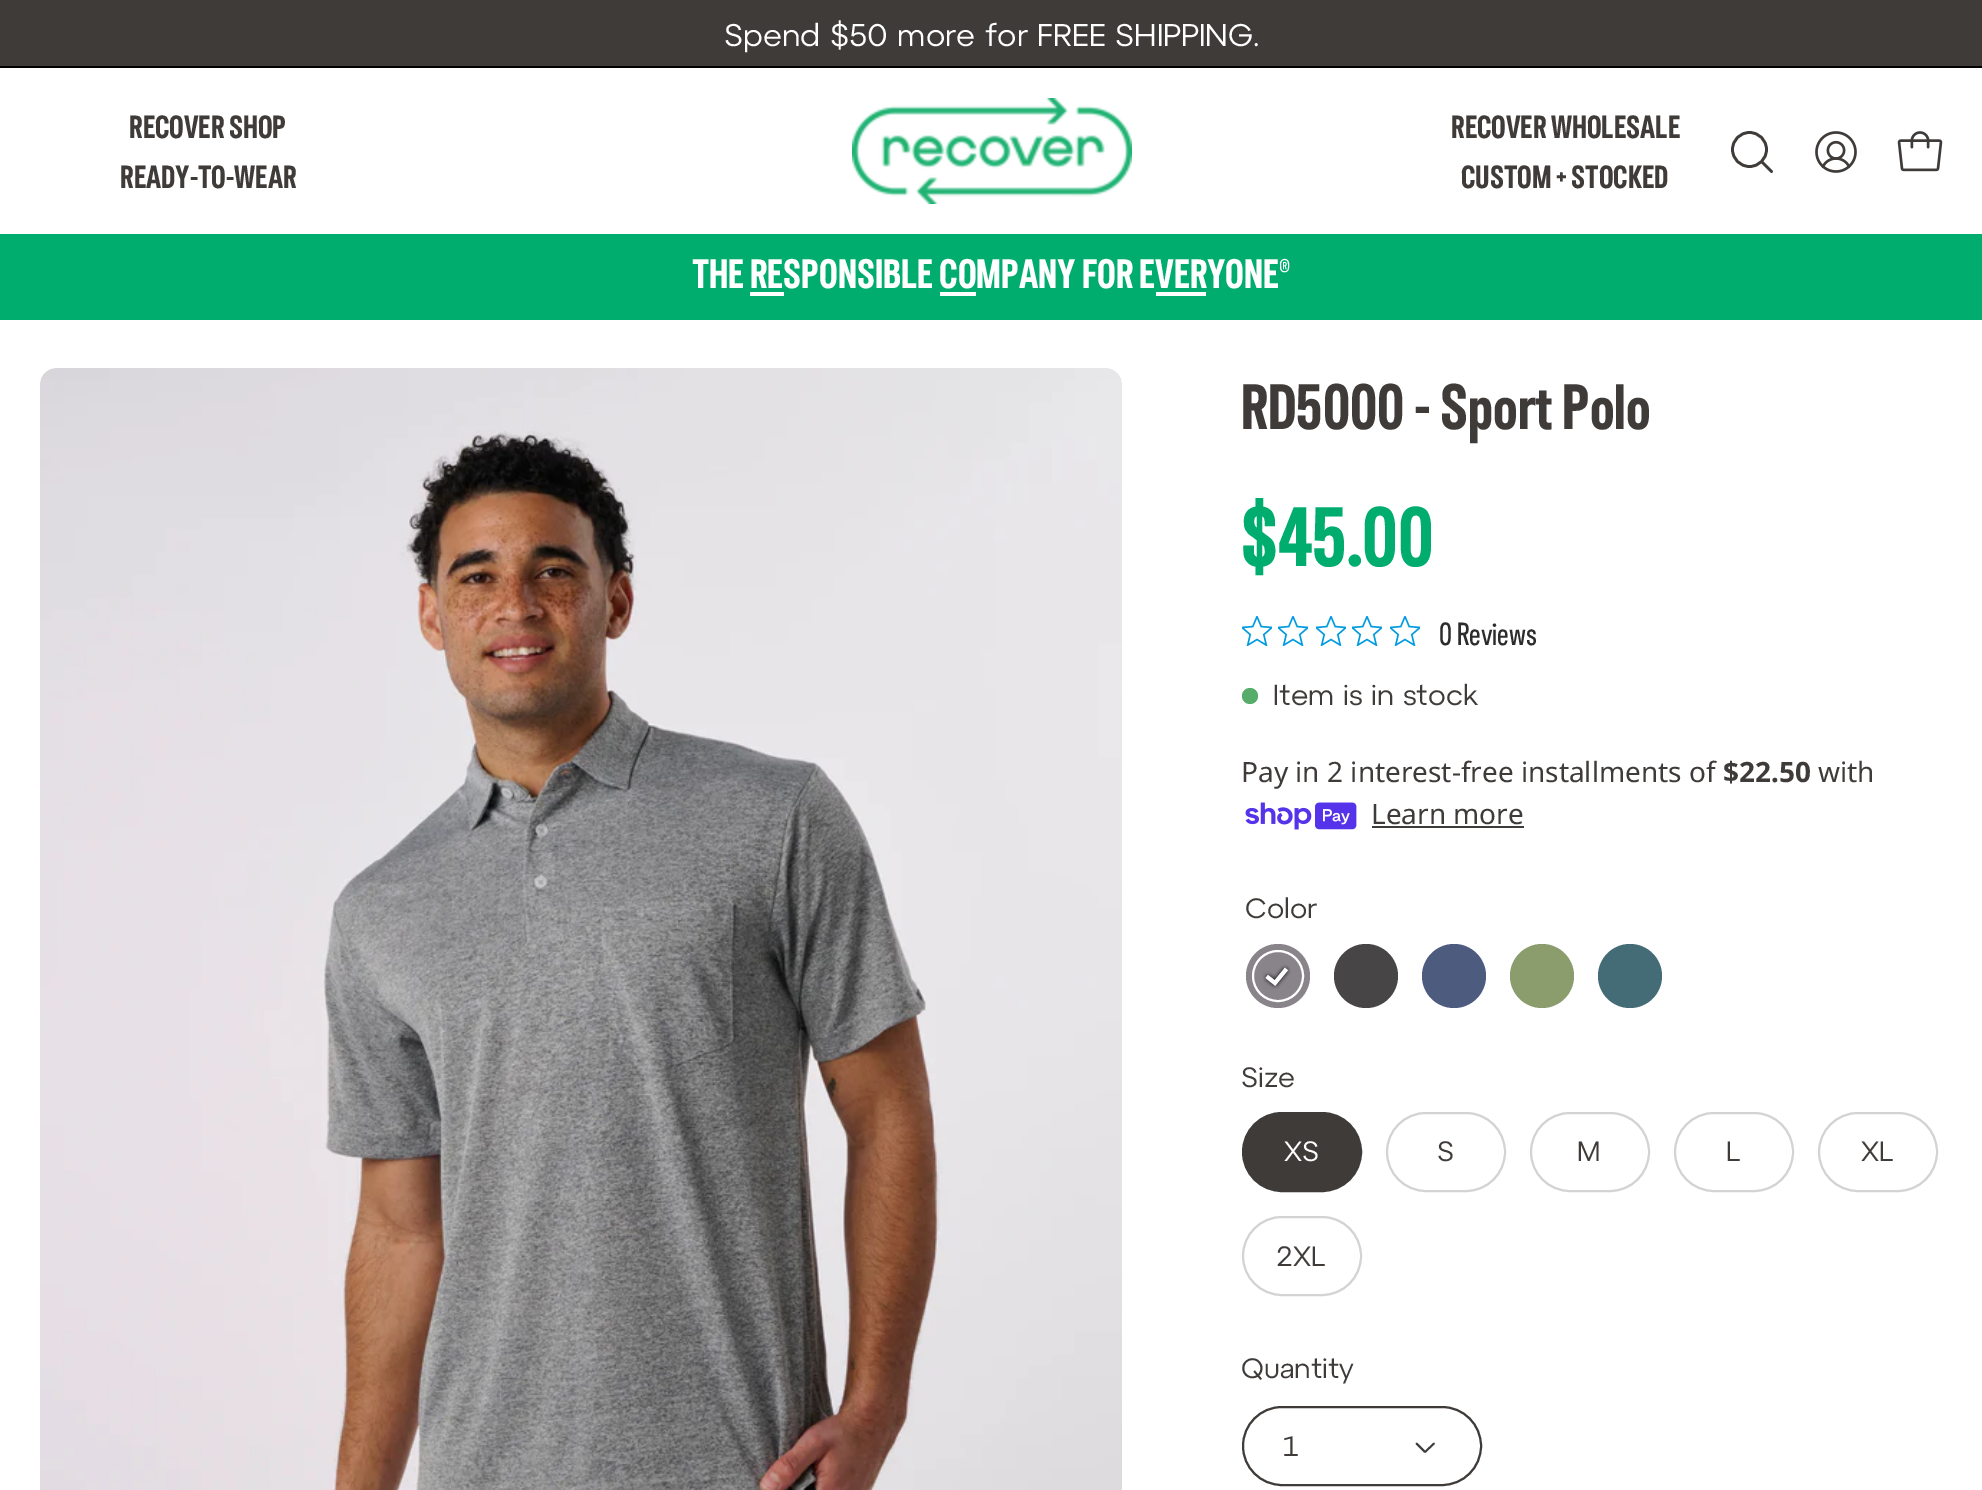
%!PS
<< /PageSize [1982 1490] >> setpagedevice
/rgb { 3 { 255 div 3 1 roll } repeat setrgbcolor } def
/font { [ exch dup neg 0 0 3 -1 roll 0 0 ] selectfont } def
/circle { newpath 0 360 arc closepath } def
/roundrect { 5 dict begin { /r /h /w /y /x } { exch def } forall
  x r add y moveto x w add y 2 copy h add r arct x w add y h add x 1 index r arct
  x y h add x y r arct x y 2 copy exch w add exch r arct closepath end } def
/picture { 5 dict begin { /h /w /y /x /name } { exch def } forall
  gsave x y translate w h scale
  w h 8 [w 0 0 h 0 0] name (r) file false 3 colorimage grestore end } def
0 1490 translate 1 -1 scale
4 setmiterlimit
255 255 255 rgb
0 0 1982 1490 rectfill
63 59 57 rgb
0 0 1982 66 rectfill
0 0 0 rgb
0 66 1982 2 rectfill
(img/1.rgb) 852 98 280 106 picture
63 59 57 rgb
2.7 setlinewidth
1 setlinecap
1 setlinejoin
1749.5 166.5 moveto 1759 166.5 1766.5 159 1766.5 149.5 curveto 1766.5 140 1759 132.5 1749.5 132.5 curveto 1740 132.5 1732.5 140 1732.5 149.5 curveto 1732.5 159 1740 166.5 1749.5 166.5 curveto closepath 1761.5 161.5 moveto 1771.5 171.5 lineto stroke
(img/2.rgb) 1815 131 42 42 picture
(img/3.rgb) 1897 131 46 41 picture
[
  [0 234 1982 86 0 173 111]
  [750 292 34 4 255 255 255]
  [940 292 36 4 255 255 255]
  [1156 292 50 4 255 255 255]
] { aload pop rgb rectfill } forall
(img/4.rgb) 40 368 1082 1122 picture
(img/5.rgb) 1242 616 30 30 picture
(img/5.rgb) 1278 616 30 30 picture
(img/5.rgb) 1316 616 30 30 picture
(img/5.rgb) 1352 616 30 30 picture
(img/5.rgb) 1390 616 30 30 picture
86 173 106 rgb
1250 696 8 circle fill
(img/6.rgb) 1245 802 112 28 picture
63 59 57 rgb
1372 826 152 2 rectfill
137 131 138 rgb
1278 976 32 circle fill
(img/7.rgb) 1263 965 28 24 picture
255 255 255 rgb
2 setlinewidth
0 setlinecap
0 setlinejoin
1278 976 25 circle stroke
71 69 70 rgb
1366 976 32 circle fill
77 91 127 rgb
1454 976 32 circle fill
139 156 109 rgb
1542 976 32 circle fill
68 108 119 rgb
1630 976 32 circle fill
63 59 57 rgb
1243 1113 118 78 39 roundrect gsave fill grestore
stroke
211 211 211 rgb
1387 1113 118 78 39 roundrect stroke
1531 1113 118 78 39 roundrect stroke
1675 1113 118 78 39 roundrect stroke
1819 1113 118 78 39 roundrect stroke
1243 1217 118 78 39 roundrect stroke
63 59 57 rgb
1243 1407 238 78 39 roundrect stroke
1.8 setlinewidth
1 setlinecap
1 setlinejoin
1434 1443.5 moveto 1425 1452 lineto 1416.5 1443.5 lineto stroke
/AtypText-Regular 31.25 font
255 255 255 rgb
724 46 moveto (Spend $50 more for FREE SHIPPING.) show
/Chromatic-Bold 32 font
63 59 57 rgb
[
  [(RECOVER SHOP) 129 138]
  [(READY-TO-WEAR) 120 188]
  [(RECOVER WHOLESALE) 1451 138]
  [(CUSTOM + STOCKED) 1461 188]
] { aload pop moveto show } forall
/Chromatic-Bold 41 font
255 255 255 rgb
692 288 moveto (THE RESPONSIBLE COMPANY FOR EVERYONE®) show
/Chromatic-Bold 64 font
63 59 57 rgb
1241 429 moveto (RD5000 - Sport Polo) show
/Chromatic-Bold 84 font
0 173 111 rgb
1241 566 moveto ($45.00) show
/Chromatic-Regular 32 font
44 44 44 rgb
1439 645 moveto (0 Reviews) show
/AtypText-Regular 28.75 font
63 59 57 rgb
1273 705 moveto (Item is in stock) show
/NotoSans-Regular 28 font
1241 782 moveto (Pay in 2 interest-free installments of) show
/NotoSans-Bold 28 font
1723 782 moveto ($22.50) show
/NotoSans-Regular 28 font
1818 782 moveto (with) show
1371 824 moveto (Learn more) show
/AtypText-Regular 28 font
1245 918 moveto (Color) show
1241 1087 moveto (Size) show
255 255 255 rgb
1284 1161 moveto (XS) show
63 59 57 rgb
[
  [(S) 1437 1161]
  [(M) 1577 1161]
  [(L) 1726 1161]
  [(XL) 1861 1161]
  [(2XL) 1276 1266]
  [(Quantity) 1241 1378]
] { aload pop moveto show } forall
1283 1456 moveto 1 0 (1) ashow
showpage
